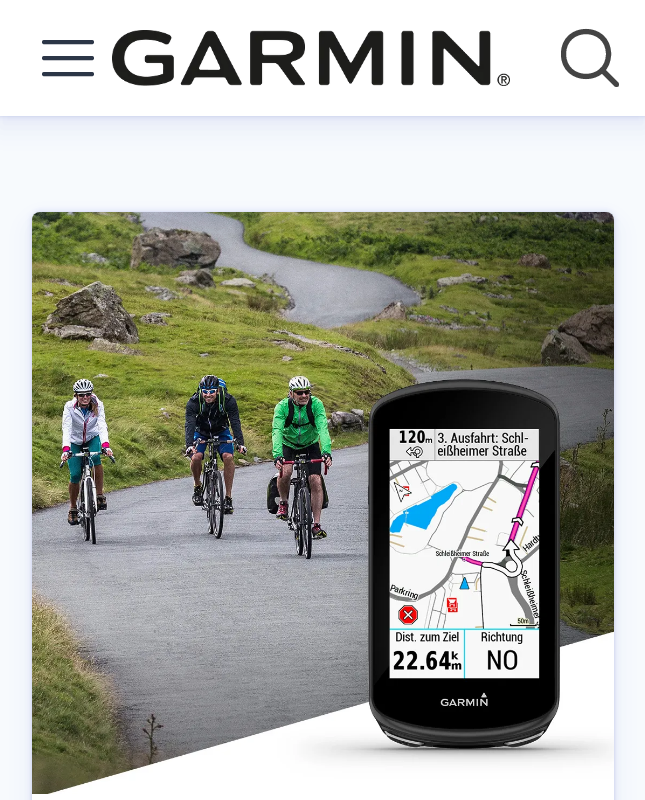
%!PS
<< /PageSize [645 800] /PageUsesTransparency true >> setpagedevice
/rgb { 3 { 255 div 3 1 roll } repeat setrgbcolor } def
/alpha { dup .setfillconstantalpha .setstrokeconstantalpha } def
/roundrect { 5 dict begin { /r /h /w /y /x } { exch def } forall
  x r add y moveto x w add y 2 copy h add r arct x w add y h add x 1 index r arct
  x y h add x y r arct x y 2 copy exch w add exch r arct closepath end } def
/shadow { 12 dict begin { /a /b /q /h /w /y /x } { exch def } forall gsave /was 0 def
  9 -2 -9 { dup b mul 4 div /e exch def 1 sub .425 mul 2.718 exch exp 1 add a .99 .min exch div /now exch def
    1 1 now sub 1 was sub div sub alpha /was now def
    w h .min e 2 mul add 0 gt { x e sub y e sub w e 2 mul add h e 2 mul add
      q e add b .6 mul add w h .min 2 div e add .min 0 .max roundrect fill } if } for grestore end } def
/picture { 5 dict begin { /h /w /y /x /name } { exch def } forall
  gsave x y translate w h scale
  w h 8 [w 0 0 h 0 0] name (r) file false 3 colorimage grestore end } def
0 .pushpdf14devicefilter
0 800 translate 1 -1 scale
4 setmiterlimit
247 250 253 rgb
0 0 645 800 rectfill
49 73 164 rgb
0 0 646 116 0 2 0.14 shadow
0 0 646 116 0 3 0.1 shadow
0 12 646 116 0 10 0.08 shadow
255 255 255 rgb
0 0 645 116 rectfill
44 54 71 rgb
4 setlinewidth
1 setlinecap
1 setlinejoin
44 58 moveto 92 58 lineto 44 42 moveto 92 42 lineto 44 74 moveto 92 74 lineto stroke
(img/1.rgb) 112 30 398 56 picture
68 68 68 rgb
5 setlinewidth
0 setlinejoin
608.5 54 moveto 608.5 84 563.5 84 563.5 54 curveto 563.5 24 608.5 24 608.5 54 curveto closepath 616.5 84.5 moveto 602 70 lineto stroke
49 73 164 rgb
32 212 582 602 8 2 0.14 shadow
32 212 582 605 8 3 0.1 shadow
32 224 582 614 8 10 0.08 shadow
255 255 255 rgb
32 212 582 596 8 roundrect fill
(img/2.rgb) 32 212 582 8 picture
(img/3.rgb) 32 212 582 582 picture
gsave
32 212 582 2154 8 roundrect clip newpath
49 73 164 rgb
-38 -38 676 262 8 10 0.08 shadow
grestore
.poppdf14devicefilter showpage
